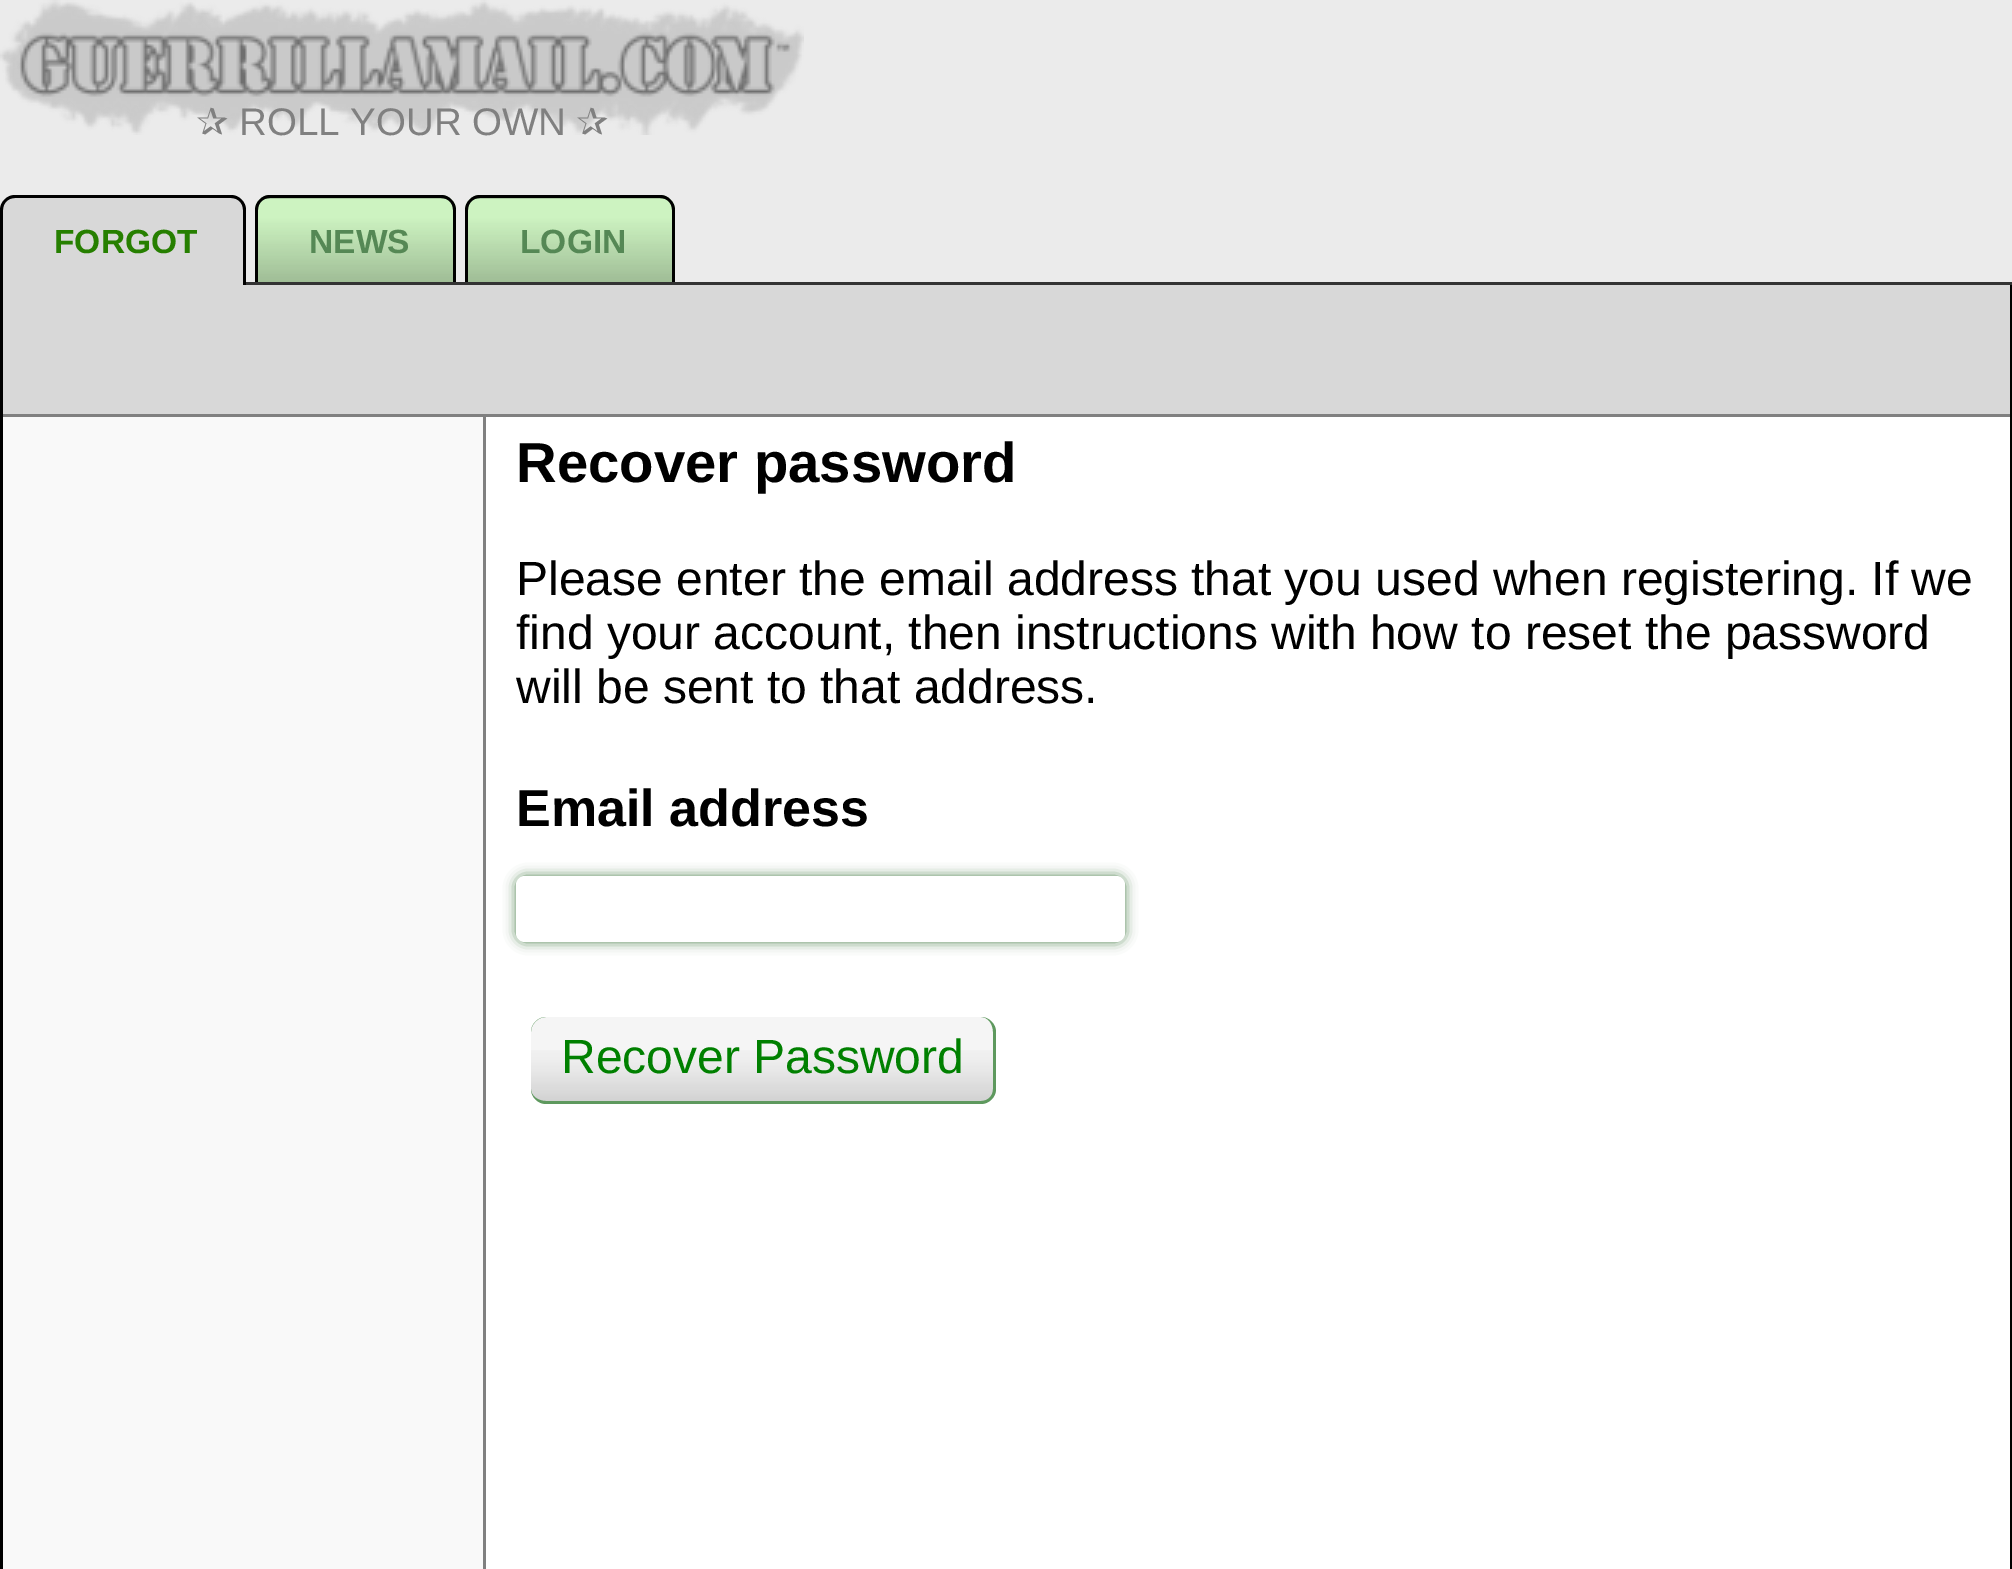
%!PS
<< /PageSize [2012 1569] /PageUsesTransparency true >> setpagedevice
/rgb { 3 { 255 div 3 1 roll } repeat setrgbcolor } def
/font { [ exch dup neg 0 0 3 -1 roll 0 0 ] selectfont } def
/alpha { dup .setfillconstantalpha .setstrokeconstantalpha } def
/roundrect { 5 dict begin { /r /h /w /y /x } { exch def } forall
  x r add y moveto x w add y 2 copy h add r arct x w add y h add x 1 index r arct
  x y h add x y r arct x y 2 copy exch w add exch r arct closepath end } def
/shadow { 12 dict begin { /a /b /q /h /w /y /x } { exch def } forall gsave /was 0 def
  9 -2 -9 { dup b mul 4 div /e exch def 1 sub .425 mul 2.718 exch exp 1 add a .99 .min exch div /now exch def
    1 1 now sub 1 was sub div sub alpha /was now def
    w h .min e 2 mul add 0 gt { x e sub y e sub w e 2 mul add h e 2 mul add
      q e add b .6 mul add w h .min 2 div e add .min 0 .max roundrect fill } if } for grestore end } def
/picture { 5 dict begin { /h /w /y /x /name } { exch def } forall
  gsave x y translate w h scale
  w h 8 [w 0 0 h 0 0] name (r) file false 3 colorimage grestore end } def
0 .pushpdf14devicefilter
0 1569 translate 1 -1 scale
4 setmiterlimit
235 235 235 rgb
0 0 2012 1569 rectfill
(img/1.rgb) 0 0 804 135 picture
(img/2.rgb) 246 282 1766 3 picture
216 216 216 rgb
15 195 moveto 231 195 lineto 239.5 195 246 201.5 246 210 curveto 246 285 lineto 0 285 lineto 0 210 lineto 0 201.5 6.5 195 15 195 curveto closepath fill
0 0 0 rgb
15 195 moveto 231 195 lineto 239 195 246 202 246 210 curveto 246 285 lineto 0 285 lineto 0 210 lineto 0 202 7 195 15 195 curveto closepath 15 198 moveto 231 198 lineto 238 198 243 203 243 210 curveto 243 285 lineto 3 285 lineto 3 210 lineto 3 203 8 198 15 198 curveto closepath eofill
205 243 193 rgb
270 195 moveto 441 195 lineto 449.5 195 456 201.5 456 210 curveto 456 282 lineto 255 282 lineto 255 210 lineto 255 201.5 261.5 195 270 195 curveto closepath fill
(img/3.rgb) 258 195 195 87 picture
0 0 0 rgb
270 195 moveto 441 195 lineto 449 195 456 202 456 210 curveto 456 282 lineto 255 282 lineto 255 210 lineto 255 202 262 195 270 195 curveto closepath 270 198 moveto 441 198 lineto 448 198 453 203 453 210 curveto 453 282 lineto 258 282 lineto 258 210 lineto 258 203 263 198 270 198 curveto closepath eofill
205 243 193 rgb
480 195 moveto 660 195 lineto 668.5 195 675 201.5 675 210 curveto 675 282 lineto 465 282 lineto 465 210 lineto 465 201.5 471.5 195 480 195 curveto closepath fill
(img/4.rgb) 468 195 204 87 picture
0 0 0 rgb
480 195 moveto 660 195 lineto 668 195 675 202 675 210 curveto 675 282 lineto 465 282 lineto 465 210 lineto 465 202 472 195 480 195 curveto closepath 480 198 moveto 660 198 lineto 667 198 672 203 672 210 curveto 672 282 lineto 468 282 lineto 468 210 lineto 468 203 473 198 480 198 curveto closepath eofill
[
  [3 417 480 1152 249 249 249]
  [2010 285 2 1284 0 0 0]
  [0 285 3 1284 0 0 0]
  [3 285 2007 129 216 216 216]
  [3 414 2007 3 128 128 128]
  [486 417 1524 1152 255 255 255]
  [483 417 3 1152 128 128 128]
] { aload pop rgb rectfill } forall
85 136 85 rgb
516 876 609 66 9 6 1 shadow
255 255 255 rgb
516 876 609 66 9 roundrect fill
245 245 245 rgb
531 1017 465 87 15 roundrect fill
(img/5.rgb) 531 1050 465 51 picture
94 153 94 rgb
546 1017 moveto 981 1017 lineto 989 1017 996 1024 996 1032 curveto 996 1089 lineto 996 1097 989 1104 981 1104 curveto 546 1104 lineto 538 1104 531 1097 531 1089 curveto 531 1032 lineto 531 1024 538 1017 546 1017 curveto closepath 546 1017 moveto 981 1017 lineto 988 1017 993 1024 993 1032 curveto 993 1089 lineto 993 1096 988 1101 981 1101 curveto 546 1101 lineto 538 1101 531 1096 531 1089 curveto 531 1032 lineto 531 1024 538 1017 546 1017 curveto closepath eofill
/DejaVuSans-Regular 38.5 font
128 128 128 rgb
196 135 moveto (✰) show
/LiberationSans-Regular 38.5 font
239 135 moveto (ROLL YOUR OWN) show
/DejaVuSans-Regular 38.5 font
576 135 moveto (✰) show
/LiberationSans-Bold 33.5 font
38 127 0 rgb
54 253 moveto (FORGOT) show
85 136 85 rgb
309 253 moveto (NEWS) show
520 253 moveto (LOGIN) show
/LiberationSans-Bold 56.25 font
0 0 0 rgb
516 482 moveto (Recover password) show
/LiberationSans-Regular 48 font
[
  [(Please enter the email address that you used when registering. If we) 516 595]
  [(find your account, then instructions with how to reset the password) 516 649]
  [(will be sent to that address.) 516 703]
] { aload pop moveto show } forall
/LiberationSans-Bold 52 font
516 826 moveto (Email address) show
/LiberationSans-Regular 48 font
0 128 0 rgb
561 1073 moveto (Recover Password) show
.poppdf14devicefilter showpage
